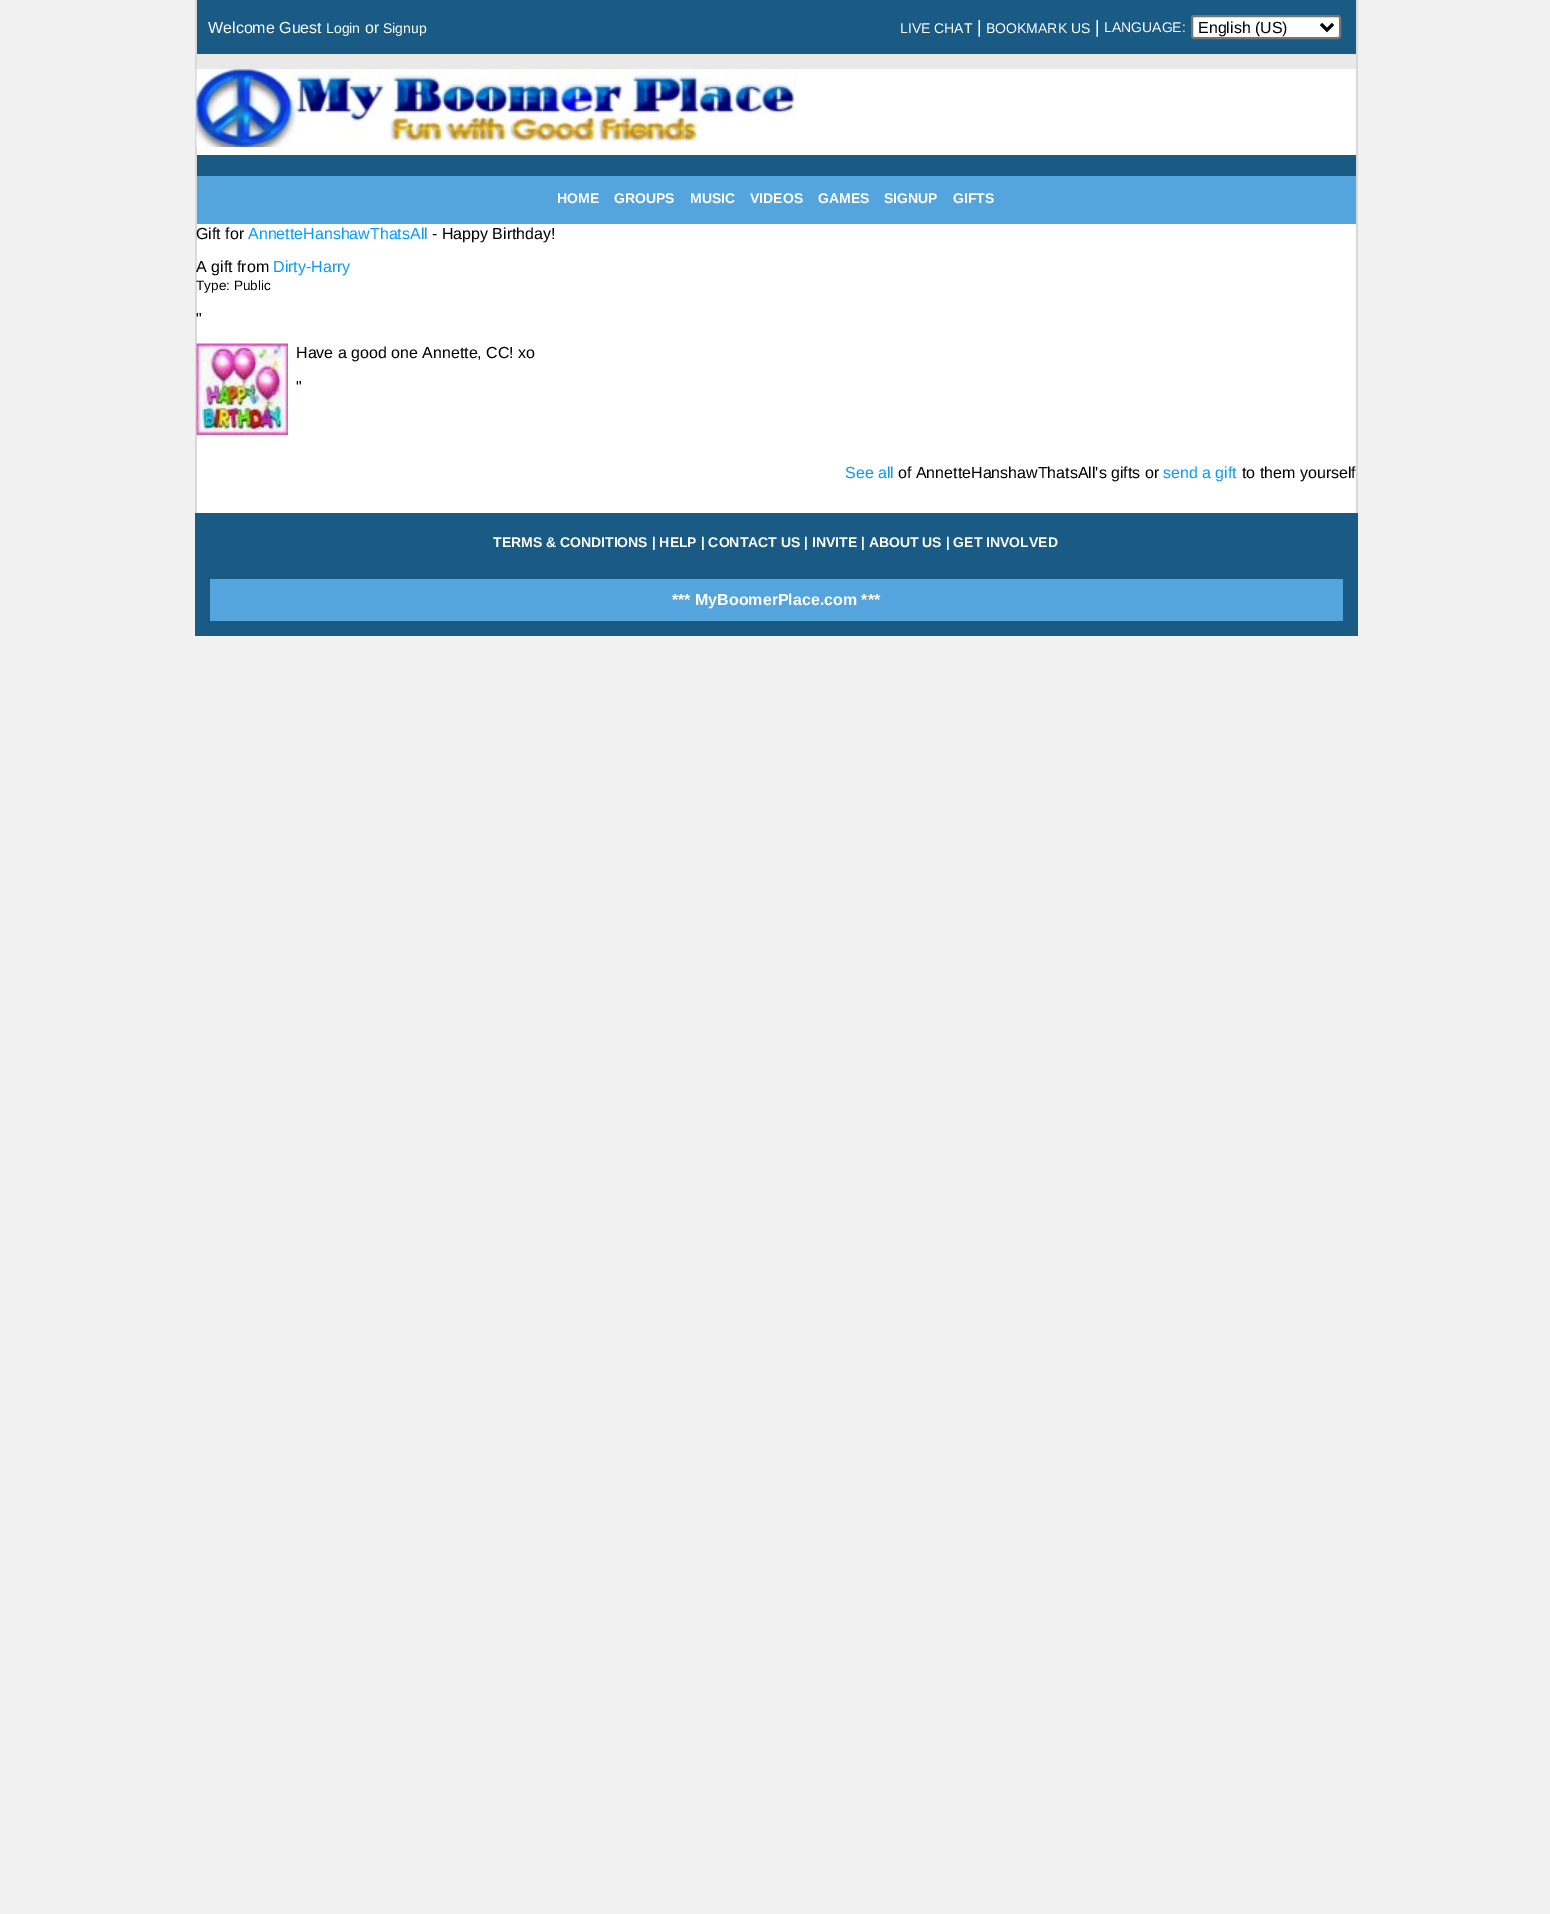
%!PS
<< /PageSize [1550 1914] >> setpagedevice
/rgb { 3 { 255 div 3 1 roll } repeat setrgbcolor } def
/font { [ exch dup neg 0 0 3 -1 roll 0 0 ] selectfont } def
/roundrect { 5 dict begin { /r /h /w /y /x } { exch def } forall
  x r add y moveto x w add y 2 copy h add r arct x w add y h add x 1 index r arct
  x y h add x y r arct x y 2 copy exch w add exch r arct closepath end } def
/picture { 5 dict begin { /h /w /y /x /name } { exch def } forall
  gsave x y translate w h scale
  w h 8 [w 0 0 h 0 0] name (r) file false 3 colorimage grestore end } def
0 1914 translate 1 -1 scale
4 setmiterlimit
241 241 241 rgb
0 0 1550 1914 rectfill
[
  [197 0 1159 176 25 91 133]
  [1356 0 2 513 217 217 217]
  [195 0 2 513 217 217 217]
] { aload pop rgb rectfill } forall
255 255 255 rgb
1192 16 148 22 2 roundrect gsave fill grestore
118 118 118 rgb
2 setlinewidth
stroke
0 0 0 rgb
3 setlinewidth
1321 24 moveto 1327 30 lineto 1333 24 lineto stroke
255 255 255 rgb
197 69 1159 86 rectfill
233 233 233 rgb
197 54 1159 15 rectfill
(img/1.rgb) 196 69 601 78 picture
84 164 222 rgb
197 176 1159 48 rectfill
255 255 255 rgb
197 224 1159 289 rectfill
(img/2.rgb) 196 343 92 92 picture
25 91 133 rgb
195 513 1163 123 rectfill
84 164 222 rgb
210 579 1133 42 rectfill
/LiberationSans-Regular 16 font
255 255 255 rgb
208 33 moveto (Welcome Guest) show
/LiberationSans-Regular 14 font
326 33 moveto (Login) show
/LiberationSans-Regular 16 font
365 33 moveto (or) show
/LiberationSans-Regular 14 font
383 33 moveto (Signup) show
900 33 moveto (LIVE CHAT) show
/LiberationSans-Regular 18 font
977 33 moveto (|) show
/LiberationSans-Regular 14 font
986 33 moveto (BOOKMARK US) show
/LiberationSans-Regular 18 font
1095 33 moveto (|) show
/LiberationSans-Regular 14 font
1104 32 moveto (LANGUAGE:) show
/LiberationSans-Regular 16 font
0 0 0 rgb
1198 33 moveto (English \(US\)) show
/LiberationSans-Bold 14 font
255 255 255 rgb
[
  [(HOME) 557 203]
  [(GROUPS) 614 203]
  [(MUSIC) 690 203]
  [(VIDEOS) 750 203]
  [(GAMES) 818 203]
  [(SIGNUP) 884 203]
  [(GIFTS) 953 203]
] { aload pop moveto show } forall
/LiberationSans-Regular 16 font
0 0 0 rgb
196 239 moveto (Gift for) show
6 153 254 rgb
248 239 moveto (AnnetteHanshawThatsAll) show
0 0 0 rgb
432 239 moveto (- Happy Birthday!) show
196 272 moveto (A gift from) show
6 153 254 rgb
273 272 moveto (Dirty-Harry) show
/LiberationSans-Regular 13.5 font
0 0 0 rgb
196 290 moveto (Type: Public) show
/LiberationSans-Regular 16 font
[
  [(") 196 324]
  [(Have a good one Annette, CC! xo) 296 358]
  [(") 296 392]
] { aload pop moveto show } forall
6 153 254 rgb
845 478 moveto (See all) show
0 0 0 rgb
898 478 moveto (of AnnetteHanshawThatsAll's gifts or) show
6 153 254 rgb
1163 478 moveto (send a gift) show
0 0 0 rgb
1242 478 moveto (to them yourself) show
/LiberationSans-Bold 14 font
255 255 255 rgb
493 547 moveto (TERMS & CONDITIONS | HELP | CONTACT US | INVITE | ABOUT US | GET INVOLVED) show
/LiberationSans-Bold 16 font
672 605 moveto (*** MyBoomerPlace.com ***) show
showpage
